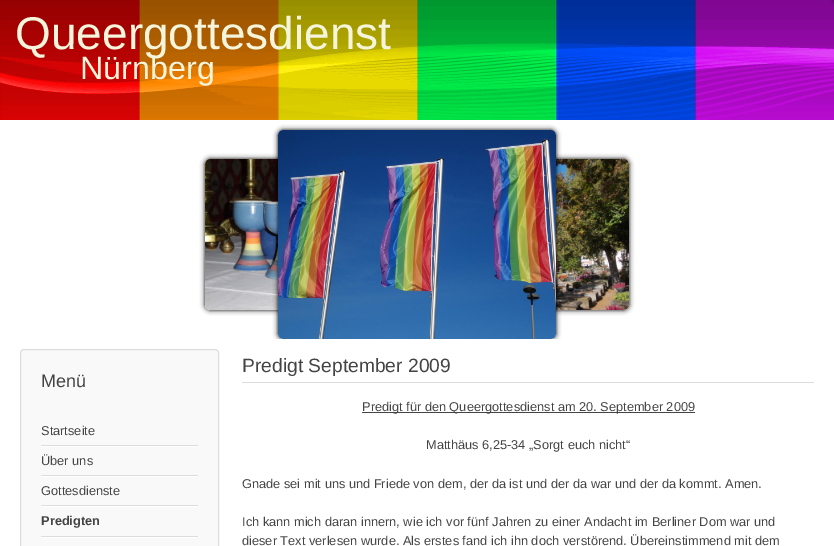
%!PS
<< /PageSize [834 546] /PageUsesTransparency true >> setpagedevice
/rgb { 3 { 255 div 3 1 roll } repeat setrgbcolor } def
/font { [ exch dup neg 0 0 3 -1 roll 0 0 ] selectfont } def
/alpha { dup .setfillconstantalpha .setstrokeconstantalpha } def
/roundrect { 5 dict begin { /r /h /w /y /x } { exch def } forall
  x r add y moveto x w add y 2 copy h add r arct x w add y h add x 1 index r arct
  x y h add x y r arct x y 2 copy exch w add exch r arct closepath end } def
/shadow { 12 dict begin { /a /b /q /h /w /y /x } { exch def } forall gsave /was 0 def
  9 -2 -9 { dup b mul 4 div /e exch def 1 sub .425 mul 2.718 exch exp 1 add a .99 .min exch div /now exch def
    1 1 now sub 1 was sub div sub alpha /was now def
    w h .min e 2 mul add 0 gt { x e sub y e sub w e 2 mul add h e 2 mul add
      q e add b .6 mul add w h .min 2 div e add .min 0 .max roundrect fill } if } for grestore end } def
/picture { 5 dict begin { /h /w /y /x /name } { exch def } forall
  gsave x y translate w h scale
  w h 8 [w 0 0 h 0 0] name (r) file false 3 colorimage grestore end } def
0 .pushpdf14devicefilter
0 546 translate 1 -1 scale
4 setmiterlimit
255 255 255 rgb
0 0 834 546 rectfill
(img/1.rgb) 0 0 834 120 picture
0 0 0 rgb
205 159 201 151 5 2.5 1 shadow
(img/3.rgb) 205 159 73 151 picture
428 159 201 151 5 2.5 1 shadow
(img/4.rgb) 556 159 73 151 picture
gsave
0 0 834 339 rectclip
278 130 278 209 5 2.5 1 shadow
grestore
(img/2.rgb) 278 130 278 209 picture
249 249 249 rgb
20.5 349.5 198 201 3.5 roundrect gsave fill grestore
221 221 221 rgb
stroke
[
  [41 446 157 1 255 255 255]
  [41 445 157 1 221 221 221]
  [41 476 157 1 255 255 255]
  [41 475 157 1 221 221 221]
  [41 506 157 1 255 255 255]
  [41 505 157 1 221 221 221]
  [41 537 157 1 255 255 255]
  [41 536 157 1 221 221 221]
  [242 382 572 1 221 221 221]
  [362 412 333 1 68 68 68]
] { aload pop rgb rectfill } forall
/LiberationSans-Regular 46 font
245 245 220 rgb
15 49 moveto (Queergottesdienst) show
/LiberationSans-Regular 32.25 font
80 79 moveto (Nürnberg) show
/LiberationSans-Regular 18 font
68 68 68 rgb
41 387 moveto (Menü) show
/LiberationSans-Regular 12.8 font
[
  [(Startseite) 41 435]
  [(Über uns) 41 465]
  [(Gottesdienste) 41 495]
] { aload pop moveto show } forall
/LiberationSans-Bold 12.8 font
41 525 moveto (Predigten) show
/LiberationSans-Regular 19.25 font
242 372 moveto (Predigt September 2009) show
/LiberationSans-Regular 12.8 font
[
  [(Predigt für den Queergottesdienst am 20. September 2009) 362 411]
  [(Matthäus 6,25-34 „Sorgt euch nicht“) 426 449]
  [(Gnade sei mit uns und Friede von dem, der da ist und der da war und der da kommt. Amen.) 242 488]
  [(Ich kann mich daran innern, wie ich vor fünf Jahren zu einer Andacht im Berliner Dom war und) 242 526]
  [(dieser Text verlesen wurde. Als erstes fand ich ihn doch verstörend. Übereinstimmend mit dem) 242 545]
] { aload pop moveto show } forall
.poppdf14devicefilter showpage
